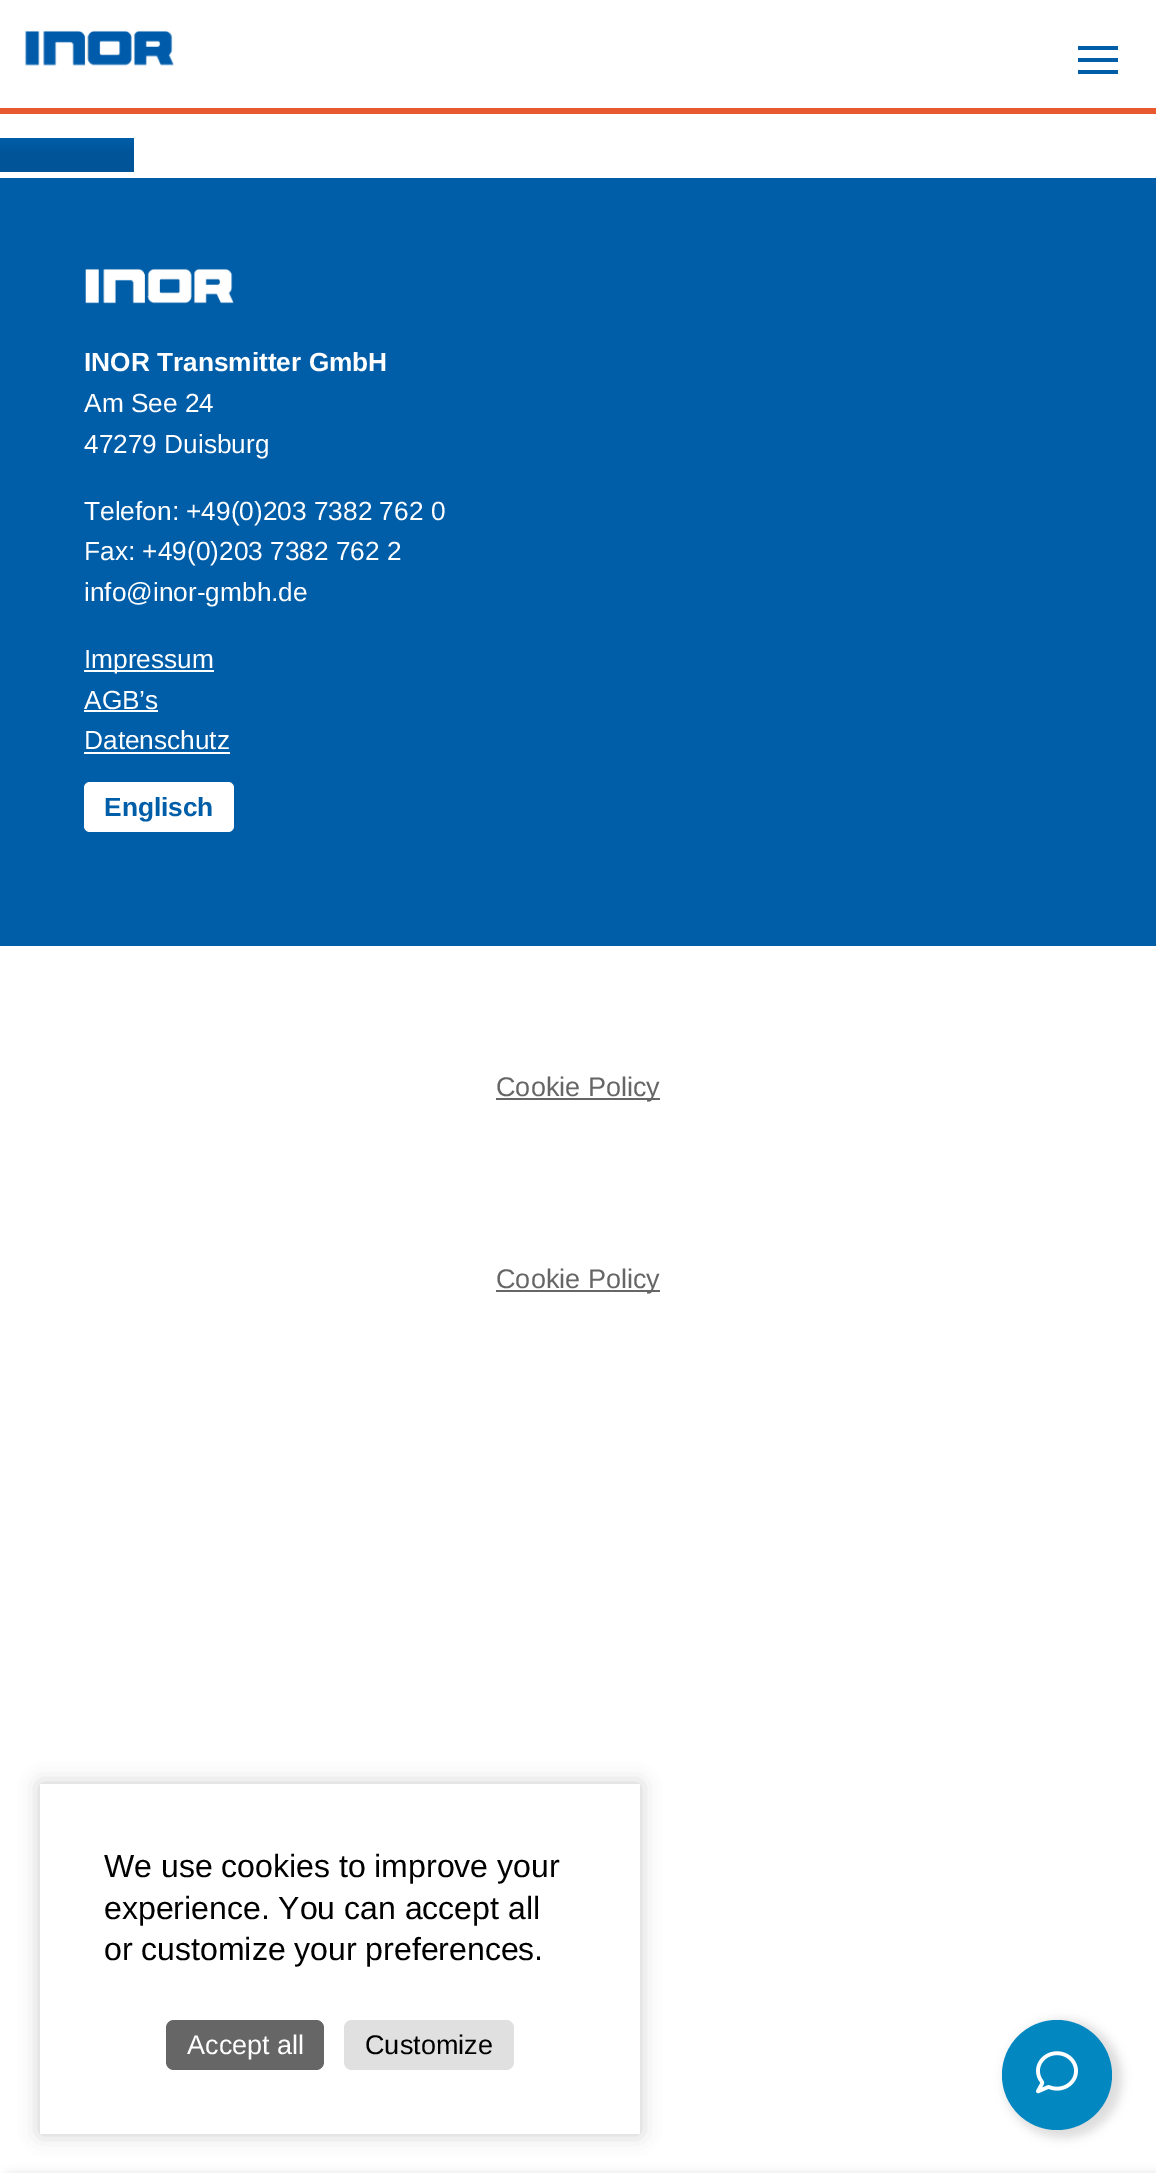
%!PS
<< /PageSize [1156 2173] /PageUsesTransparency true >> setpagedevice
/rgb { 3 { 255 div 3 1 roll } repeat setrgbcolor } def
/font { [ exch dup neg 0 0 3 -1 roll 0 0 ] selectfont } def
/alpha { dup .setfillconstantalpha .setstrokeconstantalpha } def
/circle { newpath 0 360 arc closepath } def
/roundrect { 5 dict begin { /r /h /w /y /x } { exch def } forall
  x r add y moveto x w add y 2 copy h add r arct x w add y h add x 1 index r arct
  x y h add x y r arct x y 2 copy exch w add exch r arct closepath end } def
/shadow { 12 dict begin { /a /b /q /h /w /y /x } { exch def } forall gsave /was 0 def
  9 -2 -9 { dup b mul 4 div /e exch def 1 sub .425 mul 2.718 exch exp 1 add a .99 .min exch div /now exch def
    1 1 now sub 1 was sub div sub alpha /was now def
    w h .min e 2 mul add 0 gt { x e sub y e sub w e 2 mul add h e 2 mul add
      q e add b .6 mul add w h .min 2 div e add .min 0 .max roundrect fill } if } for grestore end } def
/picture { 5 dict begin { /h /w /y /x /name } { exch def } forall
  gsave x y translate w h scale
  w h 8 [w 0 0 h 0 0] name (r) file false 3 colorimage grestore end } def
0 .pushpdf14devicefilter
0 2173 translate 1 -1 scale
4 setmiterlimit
255 255 255 rgb
0 0 1156 2173 rectfill
[
  [1078 58 40 4 0 93 168]
  [1078 46 40 4 0 93 168]
  [1078 70 40 4 0 93 168]
  [0 108 1156 6 232 89 48]
] { aload pop rgb rectfill } forall
(img/1.rgb) 24 30 150 36 picture
gsave 0 138 moveto 134 138 lineto 134 172 lineto 0 172 lineto closepath clip newpath
<< /ShadingType 2 /ColorSpace /DeviceRGB /Coords [134 138 134 172] /Extend [true true] /Function << /FunctionType 3 /Domain [0 1] /Functions [<< /FunctionType 2 /Domain [0 1] /C0 [0 0.365 0.659] /C1 [0 0.329 0.592] /N 1 >> << /FunctionType 2 /Domain [0 1] /C0 [0 0.329 0.592] /C1 [0 0.329 0.592] /N 1 >>] /Bounds [0.5] /Encode [0 1 0 1] >> >> shfill grestore
0 93 168 rgb
0 178 1156 768 rectfill
(img/2.rgb) 85 268 149 36 picture
[
  [84 670 130 2 255 255 255]
  [84 710 74 2 255 255 255]
  [84 752 146 2 255 255 255]
] { aload pop rgb rectfill } forall
84 782 150 50 6 roundrect fill
102 102 102 rgb
496 1098 164 2 rectfill
496 1290 164 2 rectfill
gsave
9 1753 moveto 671 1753 lineto 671 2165 lineto 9 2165 lineto closepath 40 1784 moveto 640 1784 lineto 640 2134 lineto 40 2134 lineto closepath eoclip newpath
0 0 0 rgb
40 1784 600 350 0 10 0.2 shadow
grestore
166 2020 158 50 8 roundrect fill
224 224 224 rgb
344 2020 170 50 8 roundrect fill
0 0 0 rgb
1004 2020 118 118 59 5 0.13 shadow
3 135 193 rgb
1057 2075 55 circle fill
(img/3.rgb) 1036 2051 42 43 picture
0 0 0 rgb
2 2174 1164 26 12 5 0.13 shadow
/LiberationSans-Bold 26.25 font
255 255 255 rgb
84 371 moveto (INOR Transmitter GmbH) show
/LiberationSans-Regular 26.25 font
[
  [(Am See 24) 84 412]
  [(47279 Duisburg) 84 453]
  [(Telefon: +49\(0\)203 7382 762 0) 84 520]
  [(Fax: +49\(0\)203 7382 762 2) 84 560]
  [(info@inor-gmbh.de) 84 601]
  [(Impressum) 84 668]
  [(AGB’s) 84 709]
  [(Datenschutz) 84 749]
] { aload pop moveto show } forall
/LiberationSans-Bold 26.25 font
0 93 168 rgb
104 816 moveto (Englisch) show
/LiberationSans-Regular 27 font
102 102 102 rgb
496 1096 moveto (Cookie Policy) show
496 1288 moveto (Cookie Policy) show
/LiberationSans-Regular 32 font
0 0 0 rgb
[
  [(We use cookies to improve your) 104 1877]
  [(experience. You can accept all) 104 1919]
  [(or customize your preferences.) 104 1960]
] { aload pop moveto show } forall
/LiberationSans-Regular 27 font
255 255 255 rgb
187 2054 moveto (Accept all) show
0 0 0 rgb
365 2054 moveto (Customize) show
.poppdf14devicefilter showpage
